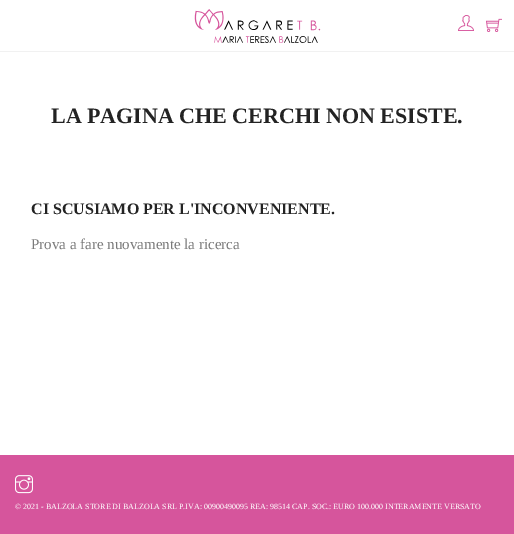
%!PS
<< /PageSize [514 534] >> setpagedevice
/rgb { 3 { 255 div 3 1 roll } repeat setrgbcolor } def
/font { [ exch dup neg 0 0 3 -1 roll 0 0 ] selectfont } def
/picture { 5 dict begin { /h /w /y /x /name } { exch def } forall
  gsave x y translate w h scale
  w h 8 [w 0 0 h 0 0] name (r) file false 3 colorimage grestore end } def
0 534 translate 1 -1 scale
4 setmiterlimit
255 255 255 rgb
0 0 514 534 rectfill
241 241 241 rgb
0 51 514 1 rectfill
(img/1.rgb) 194 9 127 34 picture
(img/2.rgb) 458 15 16 16 picture
(img/3.rgb) 486 18 16 14 picture
214 85 156 rgb
0 455 514 79 rectfill
(img/4.rgb) 15 475 18 19 picture
/LiberationSerif-Bold 22 font
35 35 35 rgb
51 123 moveto (LA PAGINA CHE CERCHI NON ESISTE.) show
/LiberationSerif-Bold 16 font
31 214 moveto (CI SCUSIAMO PER L'INCONVENIENTE.) show
/LiberationSerif-Regular 15 font
122 122 122 rgb
31 249 moveto (Prova a fare nuovamente la ricerca) show
/LiberationSerif-Regular 8 font
255 255 255 rgb
15 509 moveto (© 2021 - BALZOLA STORE DI BALZOLA SRL P.IVA: 00900490095 REA: 98514 CAP. SOC.: EURO 100.000 INTERAMENTE VERSATO) show
showpage
